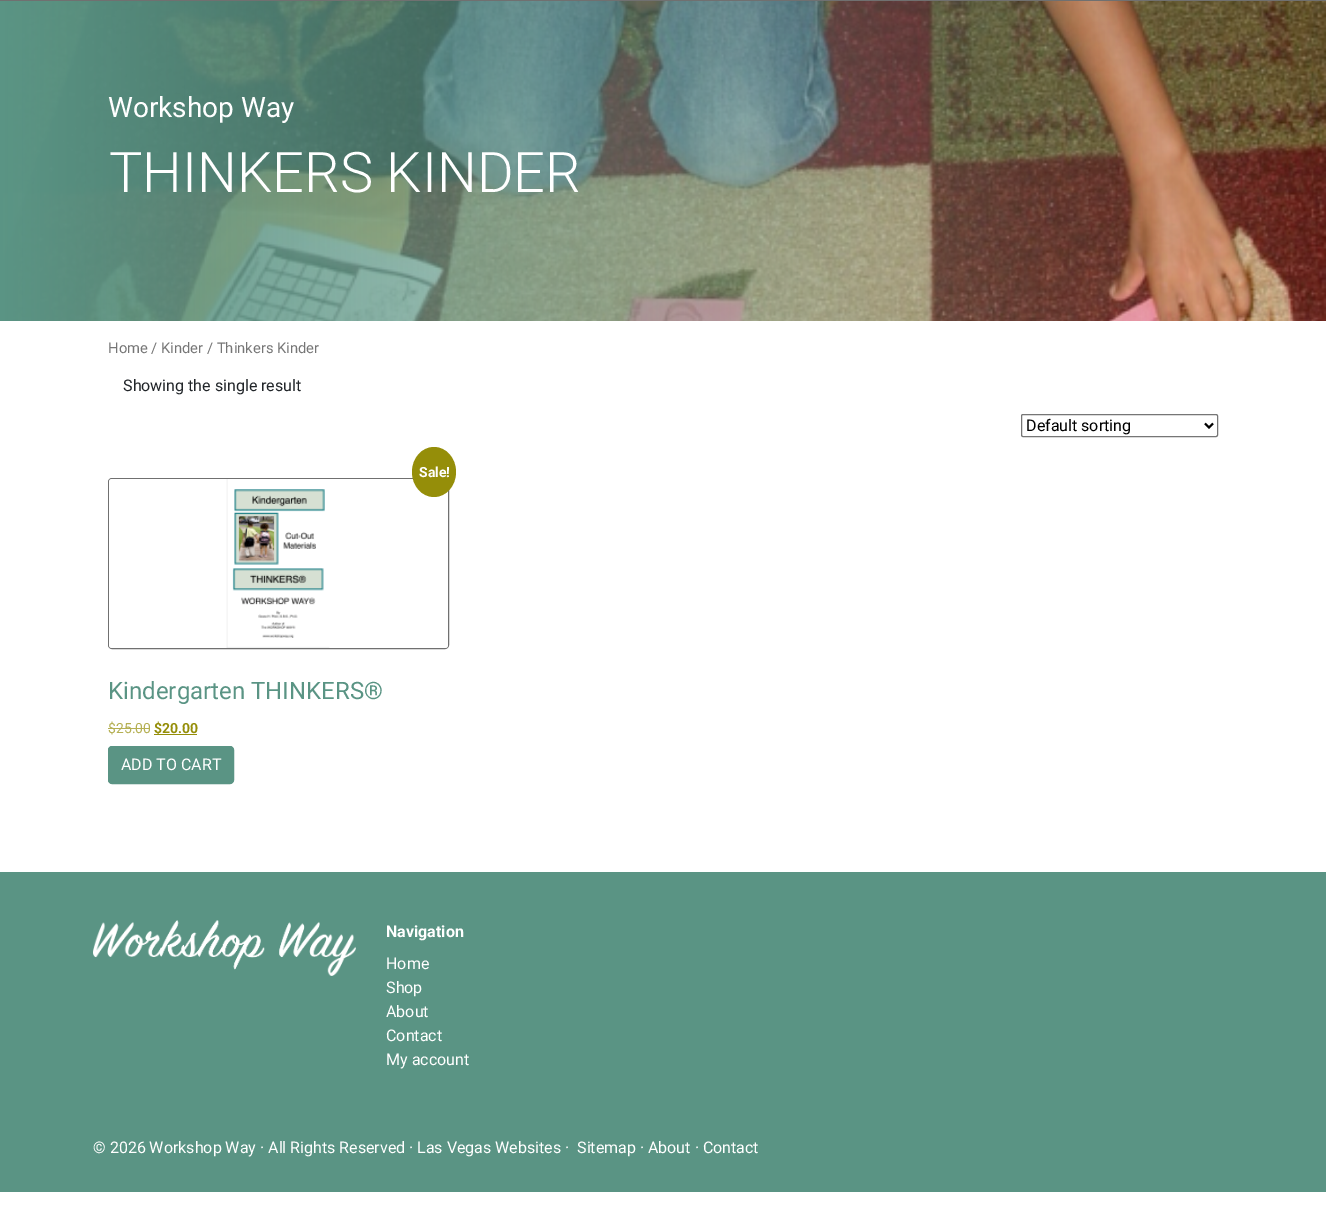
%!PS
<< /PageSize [1326 1211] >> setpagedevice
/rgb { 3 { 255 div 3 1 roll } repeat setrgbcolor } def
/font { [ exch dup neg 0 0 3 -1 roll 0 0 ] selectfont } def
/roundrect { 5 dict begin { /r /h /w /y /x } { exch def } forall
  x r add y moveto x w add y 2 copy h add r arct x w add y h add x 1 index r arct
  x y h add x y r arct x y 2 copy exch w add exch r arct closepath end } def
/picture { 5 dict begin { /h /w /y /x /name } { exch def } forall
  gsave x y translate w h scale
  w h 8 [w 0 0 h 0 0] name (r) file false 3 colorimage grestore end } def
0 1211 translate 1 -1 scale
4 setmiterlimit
255 255 255 rgb
0 0 1326 1211 rectfill
112 112 112 rgb
0 0 1326 1 rectfill
(img/1.rgb) 0 1 1326 320 picture
118 118 118 rgb
1021.5 414.5 196 22 1.5 roundrect stroke
0 0 0 rgb
2 setlinewidth
1205 423.5 moveto 1209 427.5 lineto 1213 423.5 lineto stroke
112 112 112 rgb
1 setlinewidth
108.5 478.5 340 170 3.5 roundrect stroke
(img/2.rgb) 109 479 339 169 picture
149 142 9 rgb
434 447 moveto 446 447 456 458 456 472 curveto 456 486 446 497 434 497 curveto 422 497 412 486 412 472 curveto 412 458 422 447 434 447 curveto closepath fill
181 176 83 rgb
108 728 42 1 rectfill
149 142 9 rgb
154 734 43 1 rectfill
90 148 132 rgb
108.5 746.5 125 37 3.5 roundrect gsave fill grestore
stroke
0 872 1326 320 rectfill
(img/3.rgb) 93 920 263 56 picture
/Roboto-Regular 28 font
255 255 255 rgb
108 117 moveto (Workshop Way) show
/Roboto-Light 56 font
109 192 moveto (THINKERS KINDER) show
/Roboto-Regular 14.75 font
118 118 118 rgb
108 353 moveto (Home / Kinder / Thinkers Kinder) show
/Roboto-Regular 16 font
33 37 41 rgb
123 391 moveto (Showing the single result) show
0 0 0 rgb
1026 431 moveto (Default sorting) show
/Roboto-Bold 14 font
255 255 255 rgb
419 477 moveto (Sale!) show
/Roboto-Regular 24 font
90 148 132 rgb
108 699 moveto (Kindergarten THINKERS®) show
/Roboto-Regular 14 font
181 176 83 rgb
108 733 moveto ($25.00) show
/Roboto-Bold 14 font
149 142 9 rgb
154 733 moveto ($20.00) show
/Roboto-Regular 16 font
255 255 255 rgb
121 770 moveto (ADD TO CART) show
/Roboto-Bold 16 font
386 937 moveto (Navigation) show
/Roboto-Regular 16 font
[
  [(Home) 386 969]
  [(Shop) 386 993]
  [(About) 386 1017]
  [(Contact) 386 1041]
  [(My account) 386 1065]
  [(© 2026 Workshop Way · All Rights Reserved · Las Vegas Websites ·) 93 1153]
  [(Sitemap · About · Contact) 577 1153]
] { aload pop moveto show } forall
showpage
